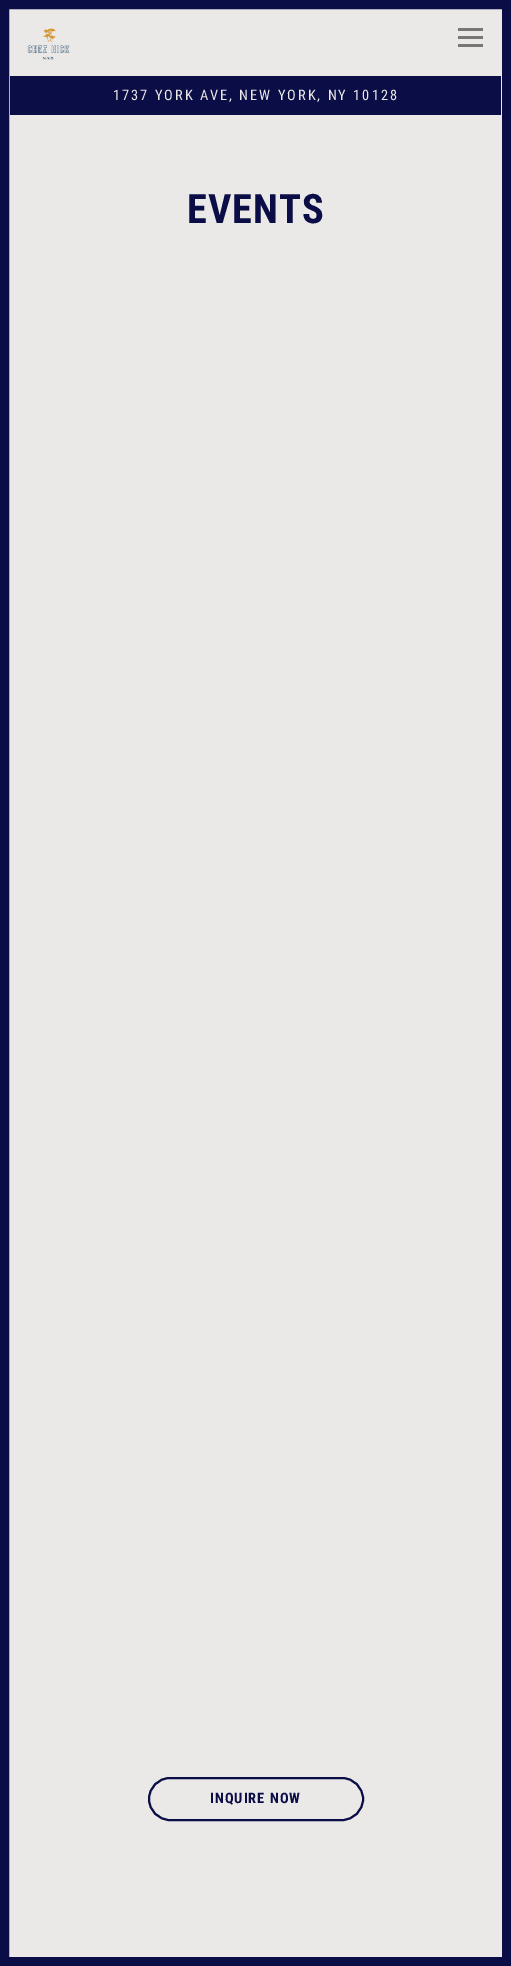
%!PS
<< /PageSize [511 1966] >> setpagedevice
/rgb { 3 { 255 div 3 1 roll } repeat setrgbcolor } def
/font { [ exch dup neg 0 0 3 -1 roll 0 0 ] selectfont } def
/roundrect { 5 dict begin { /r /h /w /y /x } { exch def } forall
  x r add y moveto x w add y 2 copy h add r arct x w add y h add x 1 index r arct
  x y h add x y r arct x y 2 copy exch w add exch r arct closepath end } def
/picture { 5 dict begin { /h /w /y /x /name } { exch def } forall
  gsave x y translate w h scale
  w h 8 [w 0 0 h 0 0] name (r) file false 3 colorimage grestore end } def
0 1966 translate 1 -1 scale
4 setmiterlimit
235 233 231 rgb
0 0 511 1966 rectfill
(img/1.rgb) 27 28 43 32 picture
[
  [458 28 25 3 118 118 118]
  [458 36 25 3 118 118 118]
  [458 44 25 3 118 118 118]
  [10 76 491 39 11 13 70]
] { aload pop rgb rectfill } forall
2 setlinewidth
149 1778 214 42 21 roundrect stroke
9 setlinewidth
4.5 4.5 502 1957 rectstroke
/RobotoCondensed-Regular 14.4 font
235 233 231 rgb
113 100 moveto 2 0 (1737 YORK AVE, NEW YORK, NY 10128) ashow
/RobotoCondensed-Bold 40.5 font
11 13 70 rgb
187 223 moveto 1 0 (EVENTS) ashow
/RobotoCondensed-Bold 14.4 font
210 1803 moveto 1 0 (INQUIRE NOW) ashow
showpage
